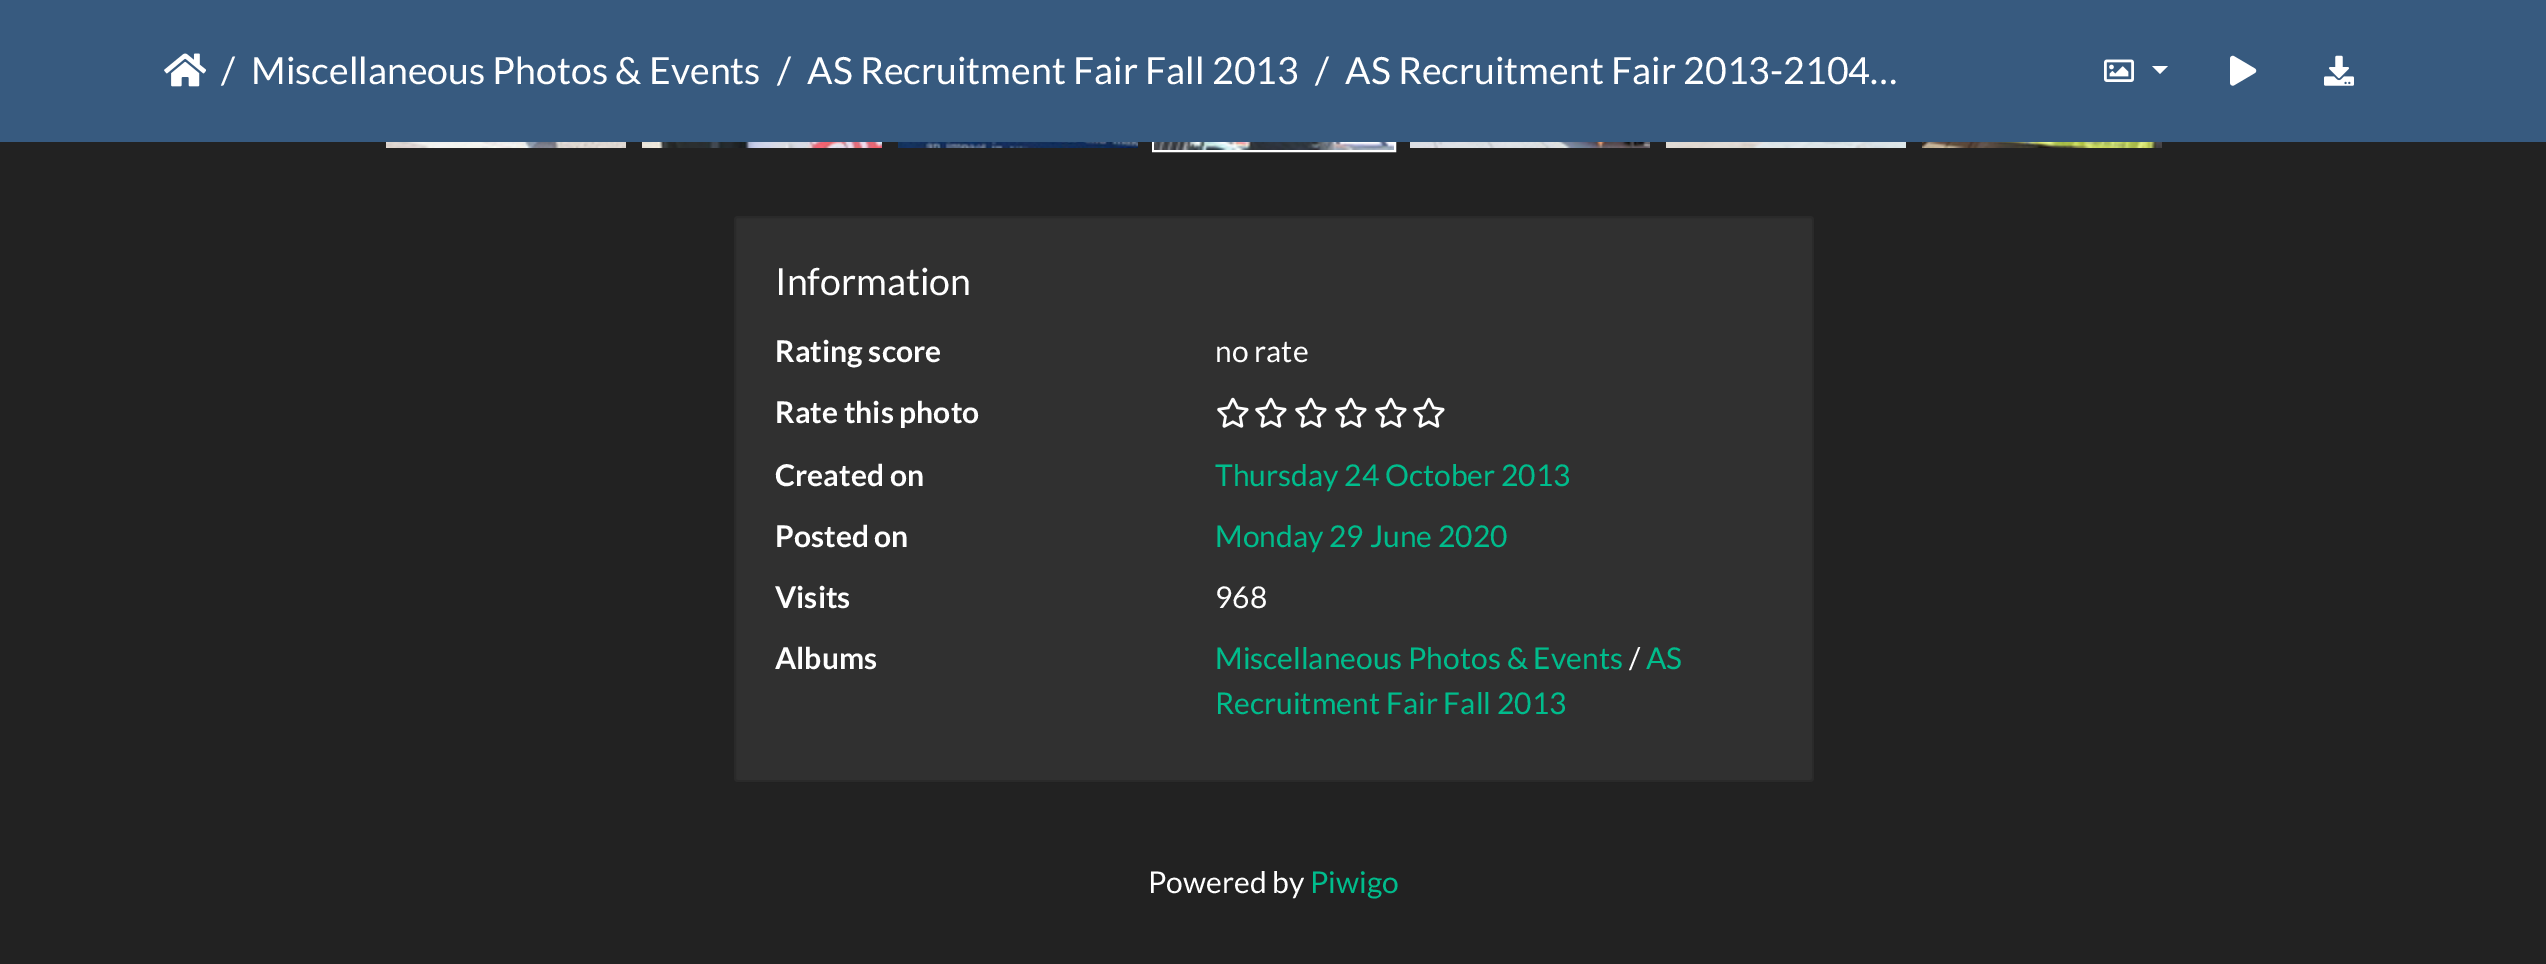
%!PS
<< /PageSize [2546 964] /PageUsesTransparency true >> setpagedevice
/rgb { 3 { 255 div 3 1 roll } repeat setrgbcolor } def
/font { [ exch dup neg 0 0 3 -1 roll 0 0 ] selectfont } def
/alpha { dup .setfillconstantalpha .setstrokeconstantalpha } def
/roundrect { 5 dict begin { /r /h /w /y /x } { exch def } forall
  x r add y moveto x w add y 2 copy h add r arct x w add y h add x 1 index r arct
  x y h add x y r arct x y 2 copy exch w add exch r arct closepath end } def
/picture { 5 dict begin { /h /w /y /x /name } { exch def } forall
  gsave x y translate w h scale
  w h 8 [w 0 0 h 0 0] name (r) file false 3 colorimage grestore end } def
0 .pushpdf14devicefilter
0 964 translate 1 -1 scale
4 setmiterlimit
34 34 34 rgb
0 0 2546 964 rectfill
(img/1.rgb) 386 142 240 6 picture
(img/2.rgb) 642 142 240 6 picture
(img/3.rgb) 898 142 240 6 picture
255 255 255 rgb
2 setlinewidth
1153 -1 242 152 rectstroke
(img/4.rgb) 1154 142 240 8 picture
(img/5.rgb) 1410 142 240 6 picture
(img/6.rgb) 1666 142 240 6 picture
(img/7.rgb) 1922 142 240 6 picture
55 90 127 rgb
0 0 2546 142 rectfill
(img/8.rgb) 164 53 42 34 picture
(img/9.rgb) 2104 59 30 23 picture
255 255 255 rgb
2152 66 moveto 2168 66 lineto 2160 74 lineto closepath fill
(img/10.rgb) 2230 55 27 31 picture
(img/11.rgb) 2324 55 30 31 picture
48 48 48 rgb
734 216 1080 566 4 roundrect fill
0.12 alpha
0 0 0 rgb
735 217 1078 564 3 roundrect stroke
1 alpha
(img/12.rgb) 1217 397 32 31 picture
(img/12.rgb) 1255 397 32 31 picture
(img/12.rgb) 1295 397 32 31 picture
(img/12.rgb) 1335 397 32 31 picture
(img/12.rgb) 1375 397 32 31 picture
(img/12.rgb) 1413 397 32 31 picture
/Lato-Regular 37.5 font
255 255 255 rgb
[
  [(/) 221 84]
  [(Miscellaneous Photos & Events) 251 84]
  [(/) 777 84]
  [(AS Recruitment Fair Fall 2013) 807 84]
  [(/) 1315 84]
  [(AS Recruitment Fair 2013-2104…) 1345 84]
  [(Information) 775 295]
] { aload pop moveto show } forall
/Lato-Bold 30 font
775 362 moveto (Rating score) show
/Lato-Regular 30 font
1215 362 moveto (no rate) show
/Lato-Bold 30 font
775 423 moveto (Rate this photo) show
775 486 moveto (Created on) show
/Lato-Regular 30 font
0 188 140 rgb
1215 486 moveto (Thursday 24 October 2013) show
/Lato-Bold 30 font
255 255 255 rgb
775 547 moveto (Posted on) show
/Lato-Regular 30 font
0 188 140 rgb
1215 547 moveto (Monday 29 June 2020) show
/Lato-Bold 30 font
255 255 255 rgb
775 608 moveto (Visits) show
/Lato-Regular 30 font
1215 608 moveto (968) show
/Lato-Bold 30 font
775 669 moveto (Albums) show
/Lato-Regular 30 font
0 188 140 rgb
1215 669 moveto (Miscellaneous Photos & Events) show
255 255 255 rgb
1629 669 moveto (/) show
0 188 140 rgb
1646 669 moveto (AS) show
1215 714 moveto (Recruitment Fair Fall 2013) show
255 255 255 rgb
1148 893 moveto (Powered by) show
0 188 140 rgb
1310 893 moveto (Piwigo) show
.poppdf14devicefilter showpage
